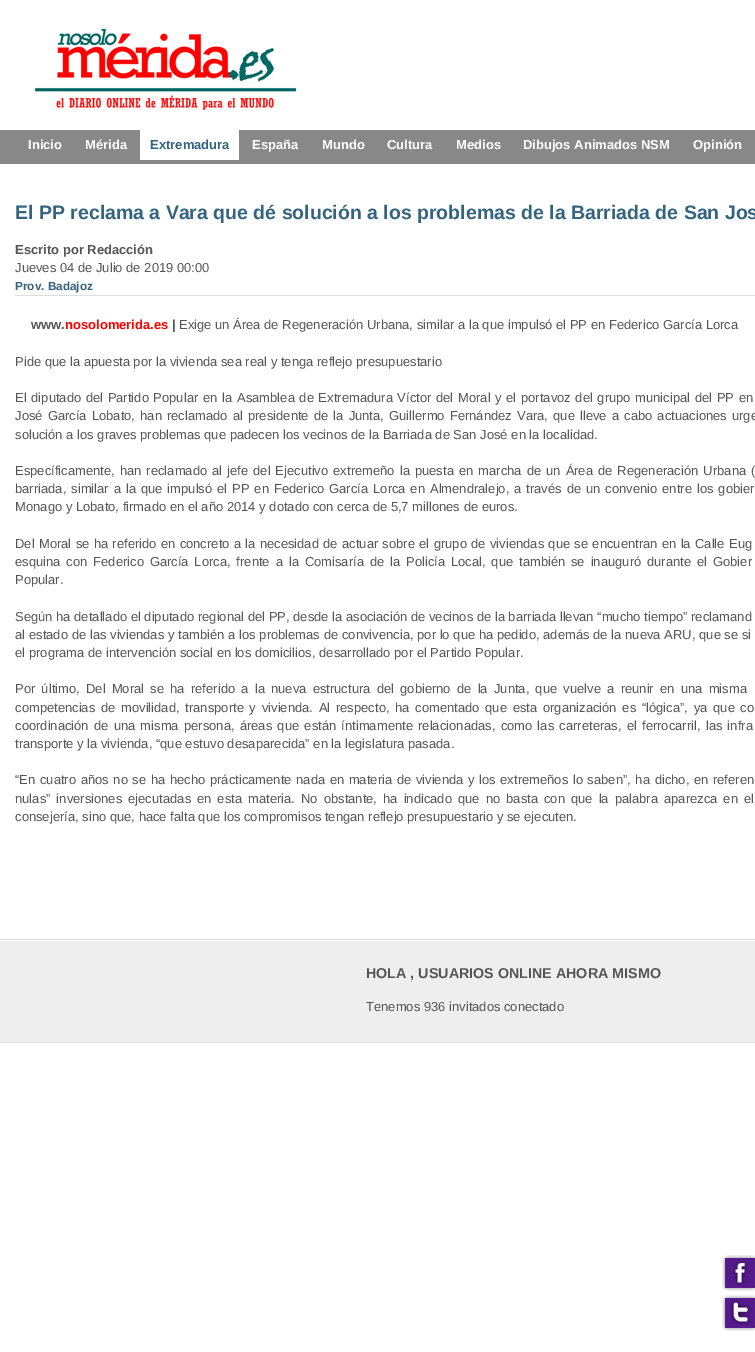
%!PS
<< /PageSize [755 1352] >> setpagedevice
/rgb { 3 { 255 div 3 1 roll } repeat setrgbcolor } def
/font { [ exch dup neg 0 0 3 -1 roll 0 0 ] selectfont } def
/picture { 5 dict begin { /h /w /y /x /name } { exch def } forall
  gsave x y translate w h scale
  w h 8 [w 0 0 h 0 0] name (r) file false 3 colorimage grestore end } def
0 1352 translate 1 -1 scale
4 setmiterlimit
255 255 255 rgb
0 0 755 1352 rectfill
(img/1.rgb) 34 28 263 82 picture
[
  [0 130 755 34 136 136 136]
  [140 130 99 30 255 255 255]
  [0 939 755 1 221 221 221]
  [15 295 740 1 222 222 222]
  [0 941 755 101 238 238 238]
  [0 1042 755 1 221 221 221]
] { aload pop rgb rectfill } forall
(img/2.rgb) 722 1255 33 36 picture
(img/3.rgb) 722 1295 33 36 picture
/LiberationSans-Bold 13 font
255 255 255 rgb
28 149 moveto (Inicio) show
85 149 moveto (Mérida) show
52 100 127 rgb
150 149 moveto (Extremadura) show
255 255 255 rgb
[
  [(España) 252 149]
  [(Mundo) 322 149]
  [(Cultura) 387 149]
  [(Medios) 456 149]
  [(Dibujos Animados NSM) 523 149]
  [(Opinión) 693 149]
] { aload pop moveto show } forall
/LiberationSans-Bold 19.5 font
52 100 127 rgb
15 219 moveto (El PP reclama a Vara que dé solución a los problemas de la Barriada de San Jos) show
/LiberationSans-Bold 13 font
85 85 85 rgb
15 254 moveto (Escrito por Redacción) show
/LiberationSans-Regular 13 font
15 272 moveto (Jueves 04 de Julio de 2019 00:00) show
/LiberationSans-Bold 11.75 font
52 100 127 rgb
15 290 moveto (Prov. Badajoz) show
/LiberationSans-Bold 13 font
85 85 85 rgb
31 329 moveto (www.) show
255 0 0 rgb
65 329 moveto (nosolomerida.es) show
85 85 85 rgb
172 329 moveto (|) show
/LiberationSans-Regular 13 font
179 329 moveto (Exige un Área de Regeneración Urbana, similar a la que impulsó el PP en Federico García Lorca) show
15 366 moveto (Pide que la apuesta por la vivienda sea real y tenga reflejo presupuestario) show
15 402 moveto 1 0 32 (El diputado del Partido Popular en la) widthshow
237 402 moveto 1 0 32 (Asamblea de Extremadura Víctor del Moral y el portavoz del grupo municipal del PP en) widthshow
15 420 moveto 1.5 0 32 (José García Lobato, han reclamado al presidente de la Junta, Guillermo Fernández Vara, que lleve a cabo actuaciones urge) widthshow
15 439 moveto (solución a los graves problemas que padecen los vecinos de la Barriada de San José en la localidad.) show
15 475 moveto 1.4 0 32 (Específicamente, han reclamado al jefe del Ejecutivo extremeño la puesta en marcha de un Área de Regeneración Urbana \() widthshow
15 493 moveto 1.3 0 32 (barriada, similar a la que impulsó el PP en Federico García Lorca en Almendralejo, a través de un convenio entre los gobier) widthshow
15 511 moveto (Monago y Lobato, firmado en el año 2014 y dotado con cerca de 5,7 millones de euros.) show
15 548 moveto 0.7 0 32 (Del Moral se ha referido en concreto a la necesidad de actuar sobre el grupo de viviendas que se encuentran en la Calle Eug) widthshow
15 566 moveto 2.25 0 32 (esquina con Federico García Lorca, frente a la Comisaría de la Policía Local, que también se inauguró durante el Gobier) widthshow
15 584 moveto (Popular.) show
15 621 moveto (Según ha detallado el diputado regional del PP, desde la asociación de vecinos de la barriada llevan “mucho tiempo” reclamand) show
15 639 moveto 0.1 0 32 (al estado de las viviendas y también a los problemas de convivencia, por lo que ha pedido, además de la nueva ARU, que se si) widthshow
15 657 moveto (el programa de intervención social en los domicilios, desarrollado por el Partido Popular.) show
15 693 moveto 2.6 0 32 (Por último, Del Moral se ha referido a la nueva estructura del gobierno de la Junta, que vuelve a reunir en una misma) widthshow
15 712 moveto 2.1 0 32 (competencias de movilidad, transporte y vivienda. Al respecto, ha comentado que esta organización es “lógica”, ya que co) widthshow
15 730 moveto 1.6 0 32 (coordinación de una misma persona, áreas que están íntimamente relacionadas, como las carreteras, el ferrocarril, las infra) widthshow
15 748 moveto (transporte y la vivienda, “que estuvo desaparecida” en la legislatura pasada.) show
15 784 moveto 1 0 32 (“En cuatro años no se ha hecho prácticamente nada en materia de vivienda y los extremeños lo saben”, ha dicho, en referen) widthshow
15 803 moveto 2.4 0 32 (nulas” inversiones ejecutadas en esta materia. No obstante, ha indicado que no basta con que la palabra aparezca en el) widthshow
15 821 moveto (consejería, sino que, hace falta que los compromisos tengan reflejo presupuestario y se ejecuten.) show
/LiberationSans-Bold 14.3 font
366 978 moveto (HOLA , USUARIOS ONLINE AHORA MISMO) show
/LiberationSans-Regular 13 font
366 1011 moveto (Tenemos 936 invitados conectado) show
showpage
